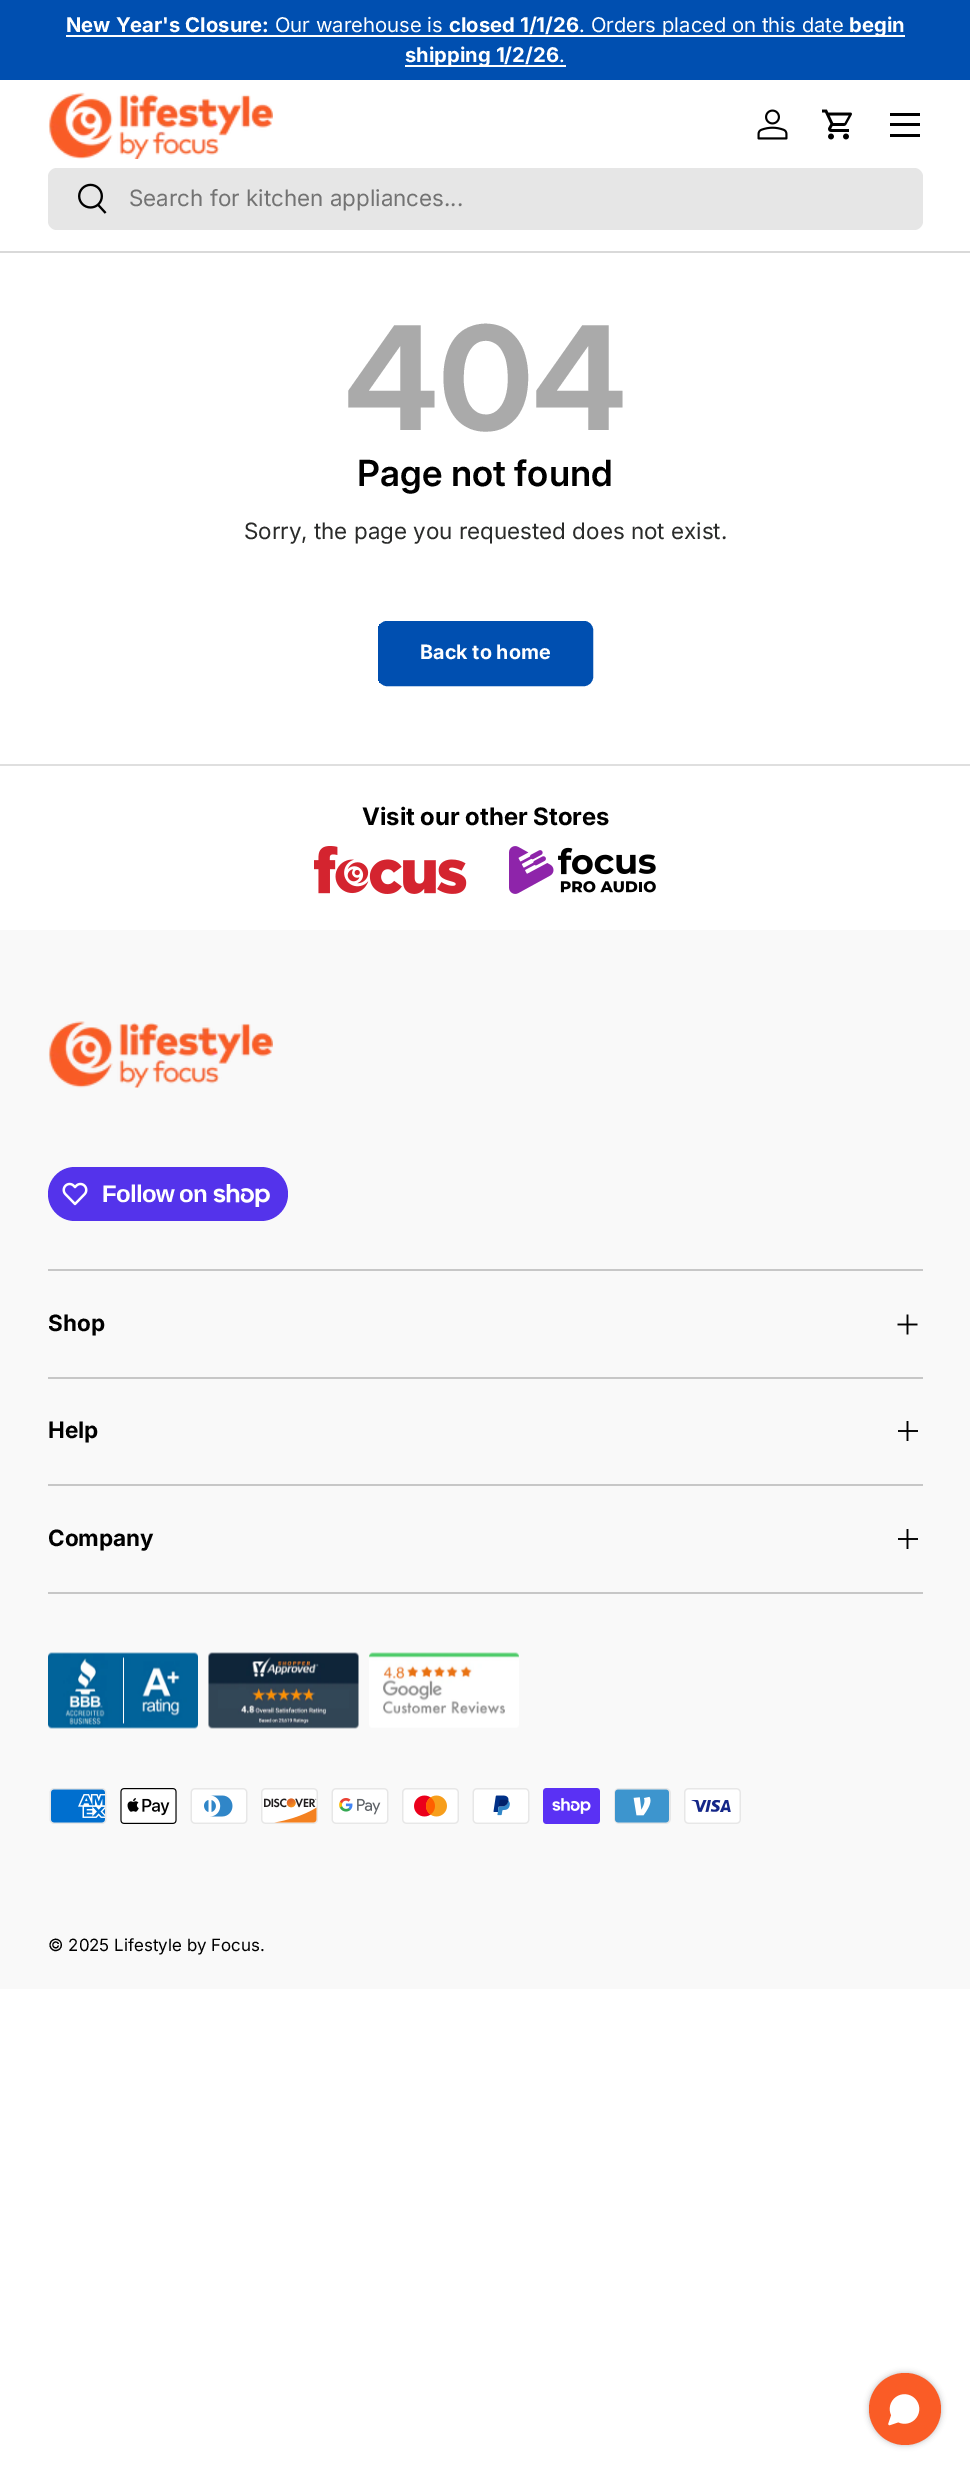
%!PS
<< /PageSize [970 2481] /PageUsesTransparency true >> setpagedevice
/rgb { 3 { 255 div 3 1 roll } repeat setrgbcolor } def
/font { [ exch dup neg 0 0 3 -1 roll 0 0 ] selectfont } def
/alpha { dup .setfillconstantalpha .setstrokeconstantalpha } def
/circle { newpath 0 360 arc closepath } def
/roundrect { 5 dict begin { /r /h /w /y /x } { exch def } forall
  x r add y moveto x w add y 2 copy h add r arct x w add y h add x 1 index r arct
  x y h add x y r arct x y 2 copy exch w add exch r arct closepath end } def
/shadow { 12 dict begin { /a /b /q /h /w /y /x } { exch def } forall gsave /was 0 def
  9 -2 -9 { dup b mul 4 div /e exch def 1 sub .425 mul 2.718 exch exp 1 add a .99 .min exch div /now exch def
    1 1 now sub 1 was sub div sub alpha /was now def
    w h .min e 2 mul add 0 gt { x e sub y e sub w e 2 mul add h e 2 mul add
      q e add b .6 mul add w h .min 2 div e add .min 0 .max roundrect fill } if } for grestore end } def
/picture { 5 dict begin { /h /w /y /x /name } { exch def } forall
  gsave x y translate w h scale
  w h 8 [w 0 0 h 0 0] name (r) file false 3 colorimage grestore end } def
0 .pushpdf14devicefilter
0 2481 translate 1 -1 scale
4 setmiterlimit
255 255 255 rgb
0 0 970 2481 rectfill
[
  [0 0 970 80 0 79 176]
  [66 35 839 2 255 255 255]
  [405 65 161 2 255 255 255]
  [0 251 970 2 217 217 217]
] { aload pop rgb rectfill } forall
(img/1.rgb) 48 92 225 67 picture
(img/2.rgb) 757 109 31 31 picture
(img/3.rgb) 822 109 30 31 picture
[
  [890 113 30 3 0 0 0]
  [890 134 30 3 0 0 0]
  [890 123 30 3 0 0 0]
] { aload pop rgb rectfill } forall
230 230 230 rgb
48 168 875 62 9 roundrect fill
(img/4.rgb) 78 183 29 31 picture
gsave
378 621 215 65 9 roundrect clip newpath
gsave 378 624 moveto 590 624 lineto 590 683 lineto 378 683 lineto closepath clip newpath
<< /ShadingType 2 /ColorSpace /DeviceRGB /Coords [-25 578 578 728] /Extend [true true] /Function << /FunctionType 3 /Domain [0 1] /Functions [<< /FunctionType 2 /Domain [0 1] /C0 [0.161 0.439 0.788] /C1 [0.161 0.439 0.788] /N 1 >> << /FunctionType 2 /Domain [0 1] /C0 [0 0.31 0.69] /C1 [0 0.31 0.69] /N 1 >>] /Bounds [0.6] /Encode [0 1 0 1] >> >> shfill grestore
grestore
0 79 176 rgb
3 setlinewidth
379.5 622.5 212 62 7.5 roundrect stroke
223 223 223 rgb
0 764 970 2 rectfill
(img/5.rgb) 314 846 153 48 picture
(img/6.rgb) 509 846 147 48 picture
249 249 249 rgb
0 930 970 1059 rectfill
(img/7.rgb) 48 1021 225 67 picture
84 51 235 rgb
48 1167 240 54 27 roundrect fill
(img/8.rgb) 62 1182 26 24 picture
(img/9.rgb) 213 1184 57 23 picture
199 199 199 rgb
48 1269 875 2 rectfill
48 1377 875 2 rectfill
(img/10.rgb) 897 1314 21 21 picture
48 1484 875 2 rectfill
(img/11.rgb) 898 1421 20 20 picture
48 1592 875 2 rectfill
(img/11.rgb) 898 1529 20 20 picture
(img/12.rgb) 48 1652 150 77 picture
(img/13.rgb) 208 1652 151 77 picture
(img/14.rgb) 369 1652 150 76 picture
(img/15.rgb) 49 1788 58 36 picture
(img/16.rgb) 120 1788 57 36 picture
(img/17.rgb) 190 1788 58 36 picture
(img/18.rgb) 261 1788 57 36 picture
(img/19.rgb) 331 1788 58 36 picture
(img/20.rgb) 402 1788 57 36 picture
(img/21.rgb) 472 1788 58 36 picture
(img/22.rgb) 543 1788 57 36 picture
(img/23.rgb) 614 1788 57 36 picture
(img/24.rgb) 684 1788 57 36 picture
17 19 38 rgb
869 2373 72 72 36 3 0.3 shadow
250 92 38 rgb
905 2409 36 circle fill
(img/25.rgb) 888 2394 32 32 picture
/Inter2-Bold 20.25 font
255 255 255 rgb
66 32 moveto (New Year's Closure:) show
/Inter2-Regular 20.25 font
275 32 moveto (Our warehouse is) show
/Inter2-Bold 20.25 font
449 32 moveto (closed 1/1/26) show
/Inter2-Regular 20.25 font
579 32 moveto (. Orders placed on this date) show
/Inter2-Bold 20.25 font
849 32 moveto (begin) show
405 62 moveto (shipping 1/2/26) show
/Inter2-Regular 20.25 font
559 62 moveto (.) show
/Inter-Regular 22.5 font
115 115 115 rgb
129 206 moveto (Search for kitchen appliances...) show
/Inter-Bold 144 font
170 170 170 rgb
344 430 moveto (404) show
/Inter-SemiBold 36 font
0 0 0 rgb
357 486 moveto (Page not found) show
/Inter-Regular 22.5 font
42 43 42 rgb
244 539 moveto (Sorry, the page you requested does not exist.) show
/Inter2-Bold 19.75 font
255 255 255 rgb
420 659 moveto (Back to home) show
/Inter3-Bold 24 font
0 0 0 rgb
362 825 moveto (Visit our other Stores) show
/LiberationSans-Bold 24 font
255 255 255 rgb
102 1202 moveto -0.75 0 (Follow on) ashow
/Inter2-Bold 22.5 font
0 0 0 rgb
[
  [(Shop) 48 1331]
  [(Help) 48 1438]
  [(Company) 48 1546]
] { aload pop moveto show } forall
/Inter2-Regular 16.9 font
48 1951 moveto (© 2025 Lifestyle by Focus.) show
.poppdf14devicefilter showpage
